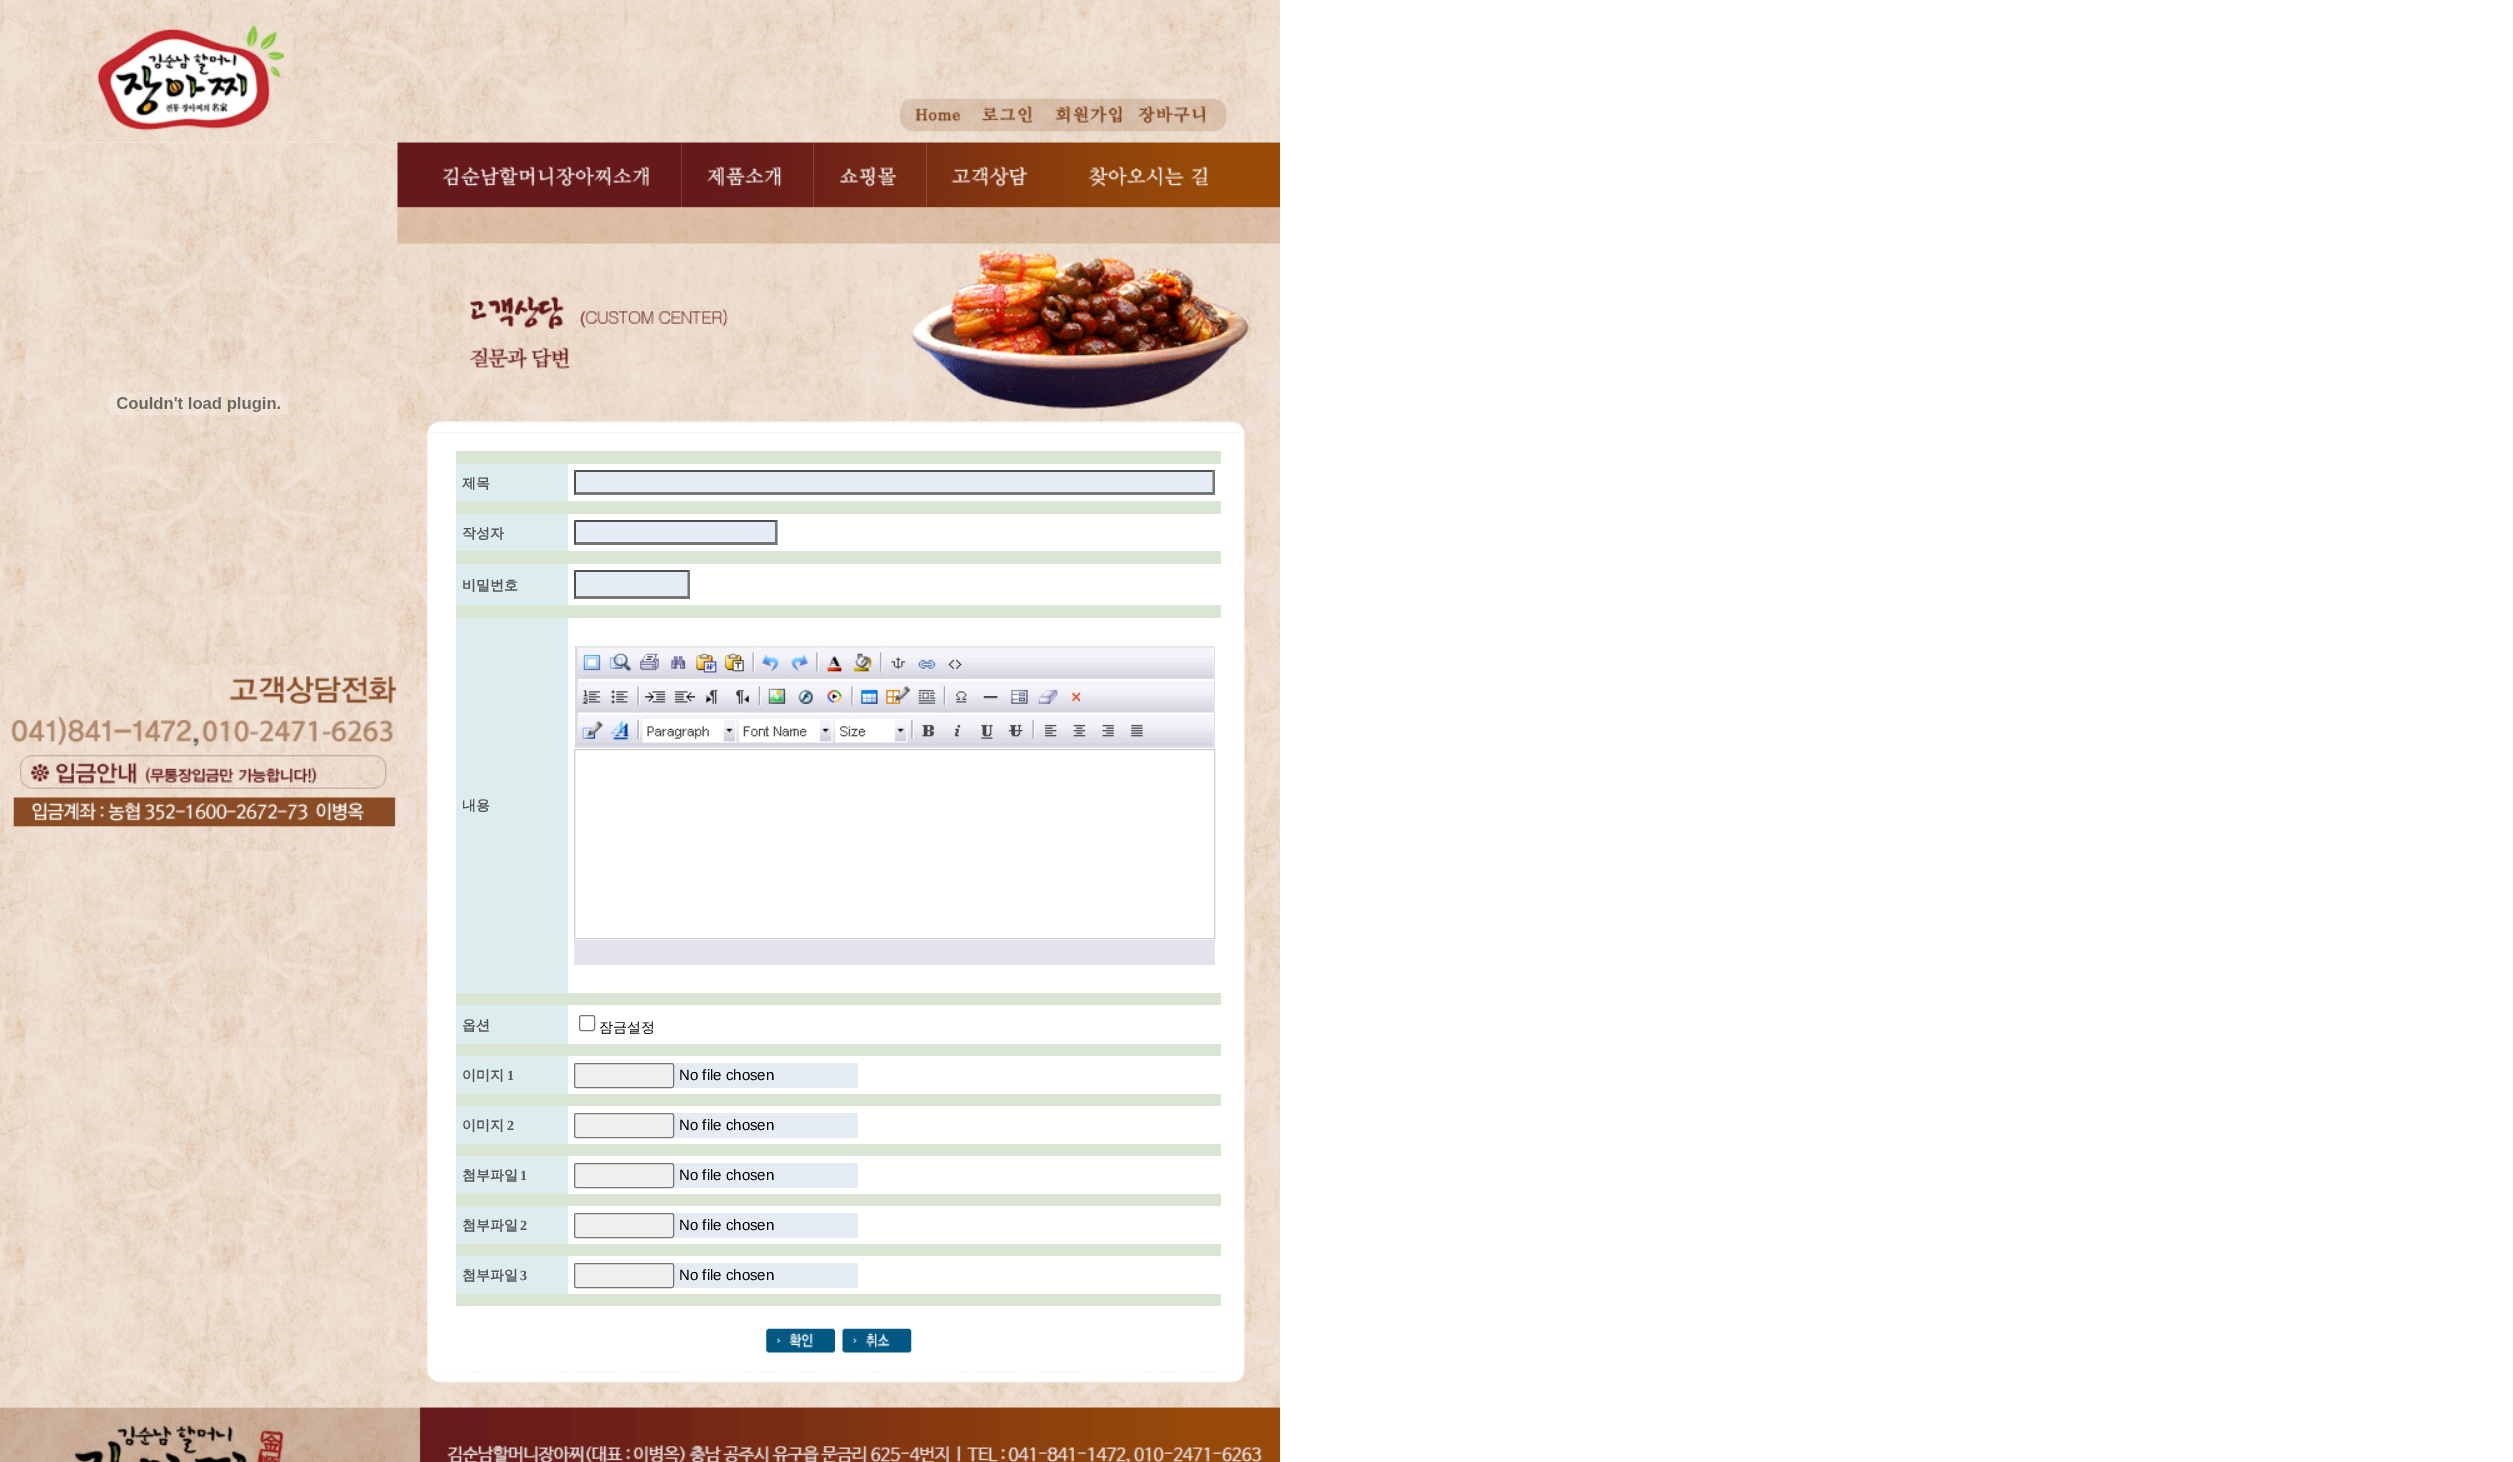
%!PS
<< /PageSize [2513 1462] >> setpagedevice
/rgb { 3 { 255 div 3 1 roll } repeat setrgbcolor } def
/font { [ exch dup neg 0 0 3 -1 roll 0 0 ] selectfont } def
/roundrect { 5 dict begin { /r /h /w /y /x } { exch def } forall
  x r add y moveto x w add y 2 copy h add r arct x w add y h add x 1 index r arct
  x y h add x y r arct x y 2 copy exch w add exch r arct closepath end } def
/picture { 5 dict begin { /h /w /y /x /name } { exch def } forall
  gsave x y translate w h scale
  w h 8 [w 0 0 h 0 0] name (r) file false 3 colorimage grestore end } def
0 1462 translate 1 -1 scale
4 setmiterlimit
255 255 255 rgb
0 0 2513 1462 rectfill
(img/2.rgb) 0 142 1280 1266 picture
(img/1.rgb) 0 0 1280 143 picture
(img/3.rgb) 109 392 180 23 picture
(img/13.rgb) 397 432 883 940 picture
(img/4.rgb) 0 665 398 187 picture
(img/5.rgb) 397 142 285 66 picture
(img/6.rgb) 681 142 133 66 picture
(img/7.rgb) 813 142 114 66 picture
(img/8.rgb) 926 142 134 66 picture
(img/9.rgb) 1060 142 220 66 picture
(img/10.rgb) 397 207 883 37 picture
(img/11.rgb) 397 243 883 179 picture
(img/12.rgb) 397 421 883 12 picture
[
  [456 451 765 13 218 229 212]
  [456 464 112 37 221 236 236]
  [574 470 641 25 229 236 243]
] { aload pop rgb rectfill } forall
79 79 79 rgb
574 470 moveto 1215 470 lineto 1212 472 lineto 576 472 lineto closepath fill
118 118 118 rgb
1215 470 moveto 1215 495 lineto 1212.5 492.5 lineto 1212.5 472.5 lineto closepath fill
1215 495 moveto 574 495 lineto 576 492 lineto 1212 492 lineto closepath fill
79 79 79 rgb
574 495 moveto 574 470 lineto 576 472.5 lineto 576 492.5 lineto closepath fill
[
  [456 501 765 13 218 229 212]
  [456 514 112 37 221 236 236]
  [574 520 204 25 229 236 243]
] { aload pop rgb rectfill } forall
79 79 79 rgb
574 520 moveto 778 520 lineto 775 522 lineto 576 522 lineto closepath fill
118 118 118 rgb
777.5 520 moveto 777.5 545 lineto 775 542.5 lineto 775 522.5 lineto closepath fill
778 545 moveto 574 545 lineto 576 542 lineto 775 542 lineto closepath fill
79 79 79 rgb
574 545 moveto 574 520 lineto 576 522.5 lineto 576 542.5 lineto closepath fill
[
  [456 551 765 13 218 229 212]
  [456 564 112 41 221 236 236]
  [574 570 116 29 229 236 243]
] { aload pop rgb rectfill } forall
79 79 79 rgb
574 570 moveto 690 570 lineto 688 572 lineto 576 572 lineto closepath fill
118 118 118 rgb
690 570 moveto 690 599 lineto 687.5 596 lineto 687.5 572.5 lineto closepath fill
690 599 moveto 574 599 lineto 576 596 lineto 688 596 lineto closepath fill
79 79 79 rgb
574 599 moveto 574 570 lineto 576 572.5 lineto 576 596 lineto closepath fill
218 229 212 rgb
456 605 765 13 rectfill
221 236 236 rgb
456 618 112 375 rectfill
226 226 226 rgb
575 646 moveto 1215 646 lineto 1214 648 lineto 578 648 lineto closepath fill
1214 646 1 102 rectfill
1215 748 moveto 575 748 lineto 578 746 lineto 1214 746 lineto closepath fill
218 218 218 rgb
575 748 moveto 575 646 lineto 578 648 lineto 578 746 lineto closepath fill
(img/14.rgb) 577 647 637 32 picture
(img/15.rgb) 583 654 18 17 picture
(img/16.rgb) 609 653 23 19 picture
(img/17.rgb) 639 653 20 18 picture
(img/18.rgb) 671 656 20 19 picture
(img/19.rgb) 696 653 24 22 picture
(img/20.rgb) 724 653 20 19 picture
(img/21.rgb) 750 647 6 32 picture
(img/22.rgb) 762 653 21 22 picture
(img/23.rgb) 791 653 21 22 picture
(img/24.rgb) 814 647 6 32 picture
(img/25.rgb) 827 656 15 16 picture
(img/26.rgb) 853 653 23 22 picture
(img/27.rgb) 877 647 7 32 picture
(img/28.rgb) 891 657 15 12 picture
(img/29.rgb) 918 659 18 10 picture
(img/30.rgb) 948 659 20 16 picture
(img/31.rgb) 577 681 637 32 picture
(img/32.rgb) 580 689 25 15 picture
(img/33.rgb) 609 689 22 15 picture
(img/34.rgb) 635 686 6 27 picture
(img/35.rgb) 644 691 22 12 picture
(img/36.rgb) 670 691 26 12 picture
(img/37.rgb) 700 689 26 15 picture
(img/38.rgb) 730 689 25 15 picture
(img/39.rgb) 756 686 7 27 picture
(img/40.rgb) 764 688 26 16 picture
(img/41.rgb) 794 689 22 15 picture
(img/42.rgb) 820 689 25 14 picture
(img/43.rgb) 849 686 6 27 picture
(img/44.rgb) 859 689 21 15 picture
(img/45.rgb) 884 686 27 18 picture
(img/46.rgb) 915 689 25 16 picture
(img/39.rgb) 941 686 7 27 picture
(img/47.rgb) 949 691 26 12 picture
(img/48.rgb) 980 695 21 4 picture
(img/49.rgb) 1011 689 18 15 picture
(img/50.rgb) 1034 689 24 16 picture
(img/51.rgb) 1064 692 26 10 picture
(img/52.rgb) 577 715 637 31 picture
(img/53.rgb) 580 721 25 18 picture
(img/54.rgb) 610 720 21 21 picture
(img/55.rgb) 635 720 5 19 picture
(img/56.rgb) 642 719 95 28 picture
(img/57.rgb) 738 719 95 28 picture
(img/58.rgb) 835 719 73 28 picture
(img/59.rgb) 909 720 5 19 picture
(img/60.rgb) 919 724 21 13 picture
(img/61.rgb) 944 724 27 13 picture
(img/62.rgb) 975 724 25 15 picture
(img/63.rgb) 1004 724 22 13 picture
(img/55.rgb) 1030 720 5 19 picture
(img/64.rgb) 1040 724 21 13 picture
(img/65.rgb) 1065 724 25 13 picture
(img/66.rgb) 1095 724 26 13 picture
(img/67.rgb) 1125 724 25 13 picture
207 207 207 rgb
574.5 749.5 640 189 rectstroke
[
  [574 940 641 25 228 227 237]
  [456 993 765 12 218 229 212]
  [456 1005 112 39 221 236 236]
] { aload pop rgb rectfill } forall
118 118 118 rgb
579.5 1015.5 15 15 2 roundrect stroke
[
  [456 1044 765 12 218 229 212]
  [456 1056 112 38 221 236 236]
  [574 1063 284 25 229 236 243]
] { aload pop rgb rectfill } forall
239 239 239 rgb
574.5 1063.5 99 24 2 roundrect gsave fill grestore
118 118 118 rgb
stroke
[
  [456 1094 765 12 218 229 212]
  [456 1106 112 38 221 236 236]
  [574 1113 284 25 229 236 243]
] { aload pop rgb rectfill } forall
239 239 239 rgb
574.5 1113.5 99 24 2 roundrect gsave fill grestore
118 118 118 rgb
stroke
[
  [456 1144 765 12 218 229 212]
  [456 1156 112 38 221 236 236]
  [574 1163 284 25 229 236 243]
] { aload pop rgb rectfill } forall
239 239 239 rgb
574.5 1163.5 99 24 2 roundrect gsave fill grestore
118 118 118 rgb
stroke
[
  [456 1194 765 12 218 229 212]
  [456 1206 112 38 221 236 236]
  [574 1213 284 25 229 236 243]
] { aload pop rgb rectfill } forall
239 239 239 rgb
574.5 1213.5 99 24 2 roundrect gsave fill grestore
118 118 118 rgb
stroke
[
  [456 1244 765 12 218 229 212]
  [456 1256 112 38 221 236 236]
  [574 1263 284 25 229 236 243]
] { aload pop rgb rectfill } forall
239 239 239 rgb
574.5 1263.5 99 24 2 roundrect gsave fill grestore
118 118 118 rgb
stroke
218 229 212 rgb
456 1294 765 12 rectfill
(img/68.rgb) 766 1328 69 25 picture
(img/69.rgb) 842 1328 70 25 picture
(img/70.rgb) 397 1371 883 12 picture
(img/71.rgb) 0 1407 1280 55 picture
/WenQuanYiZenHei-Bold 14 font
84 84 84 rgb
[
  [(제목) 462 488]
  [(작성자) 462 538]
  [(비밀번호) 462 590]
  [(내용) 462 810]
  [(옵션) 462 1030]
] { aload pop moveto show } forall
/WenQuanYiZenHei-Medium 14 font
0 0 0 rgb
599 1032 moveto (잠금설정) show
/WenQuanYiZenHei-Bold 14 font
84 84 84 rgb
462 1080 moveto (이미지) show
/LiberationSerif-Bold 14 font
507 1080 moveto (1) show
/LiberationSans-Regular 15 font
0 0 0 rgb
679 1080 moveto (No file chosen) show
/WenQuanYiZenHei-Bold 14 font
84 84 84 rgb
462 1130 moveto (이미지) show
/LiberationSerif-Bold 14 font
507 1130 moveto (2) show
/LiberationSans-Regular 15 font
0 0 0 rgb
679 1130 moveto (No file chosen) show
/WenQuanYiZenHei-Bold 14 font
84 84 84 rgb
462 1180 moveto (첨부파일) show
/LiberationSerif-Bold 14 font
520 1180 moveto (1) show
/LiberationSans-Regular 15 font
0 0 0 rgb
679 1180 moveto (No file chosen) show
/WenQuanYiZenHei-Bold 14 font
84 84 84 rgb
462 1230 moveto (첨부파일) show
/LiberationSerif-Bold 14 font
520 1230 moveto (2) show
/LiberationSans-Regular 15 font
0 0 0 rgb
679 1230 moveto (No file chosen) show
/WenQuanYiZenHei-Bold 14 font
84 84 84 rgb
462 1280 moveto (첨부파일) show
/LiberationSerif-Bold 14 font
520 1280 moveto (3) show
/LiberationSans-Regular 15 font
0 0 0 rgb
679 1280 moveto (No file chosen) show
showpage
